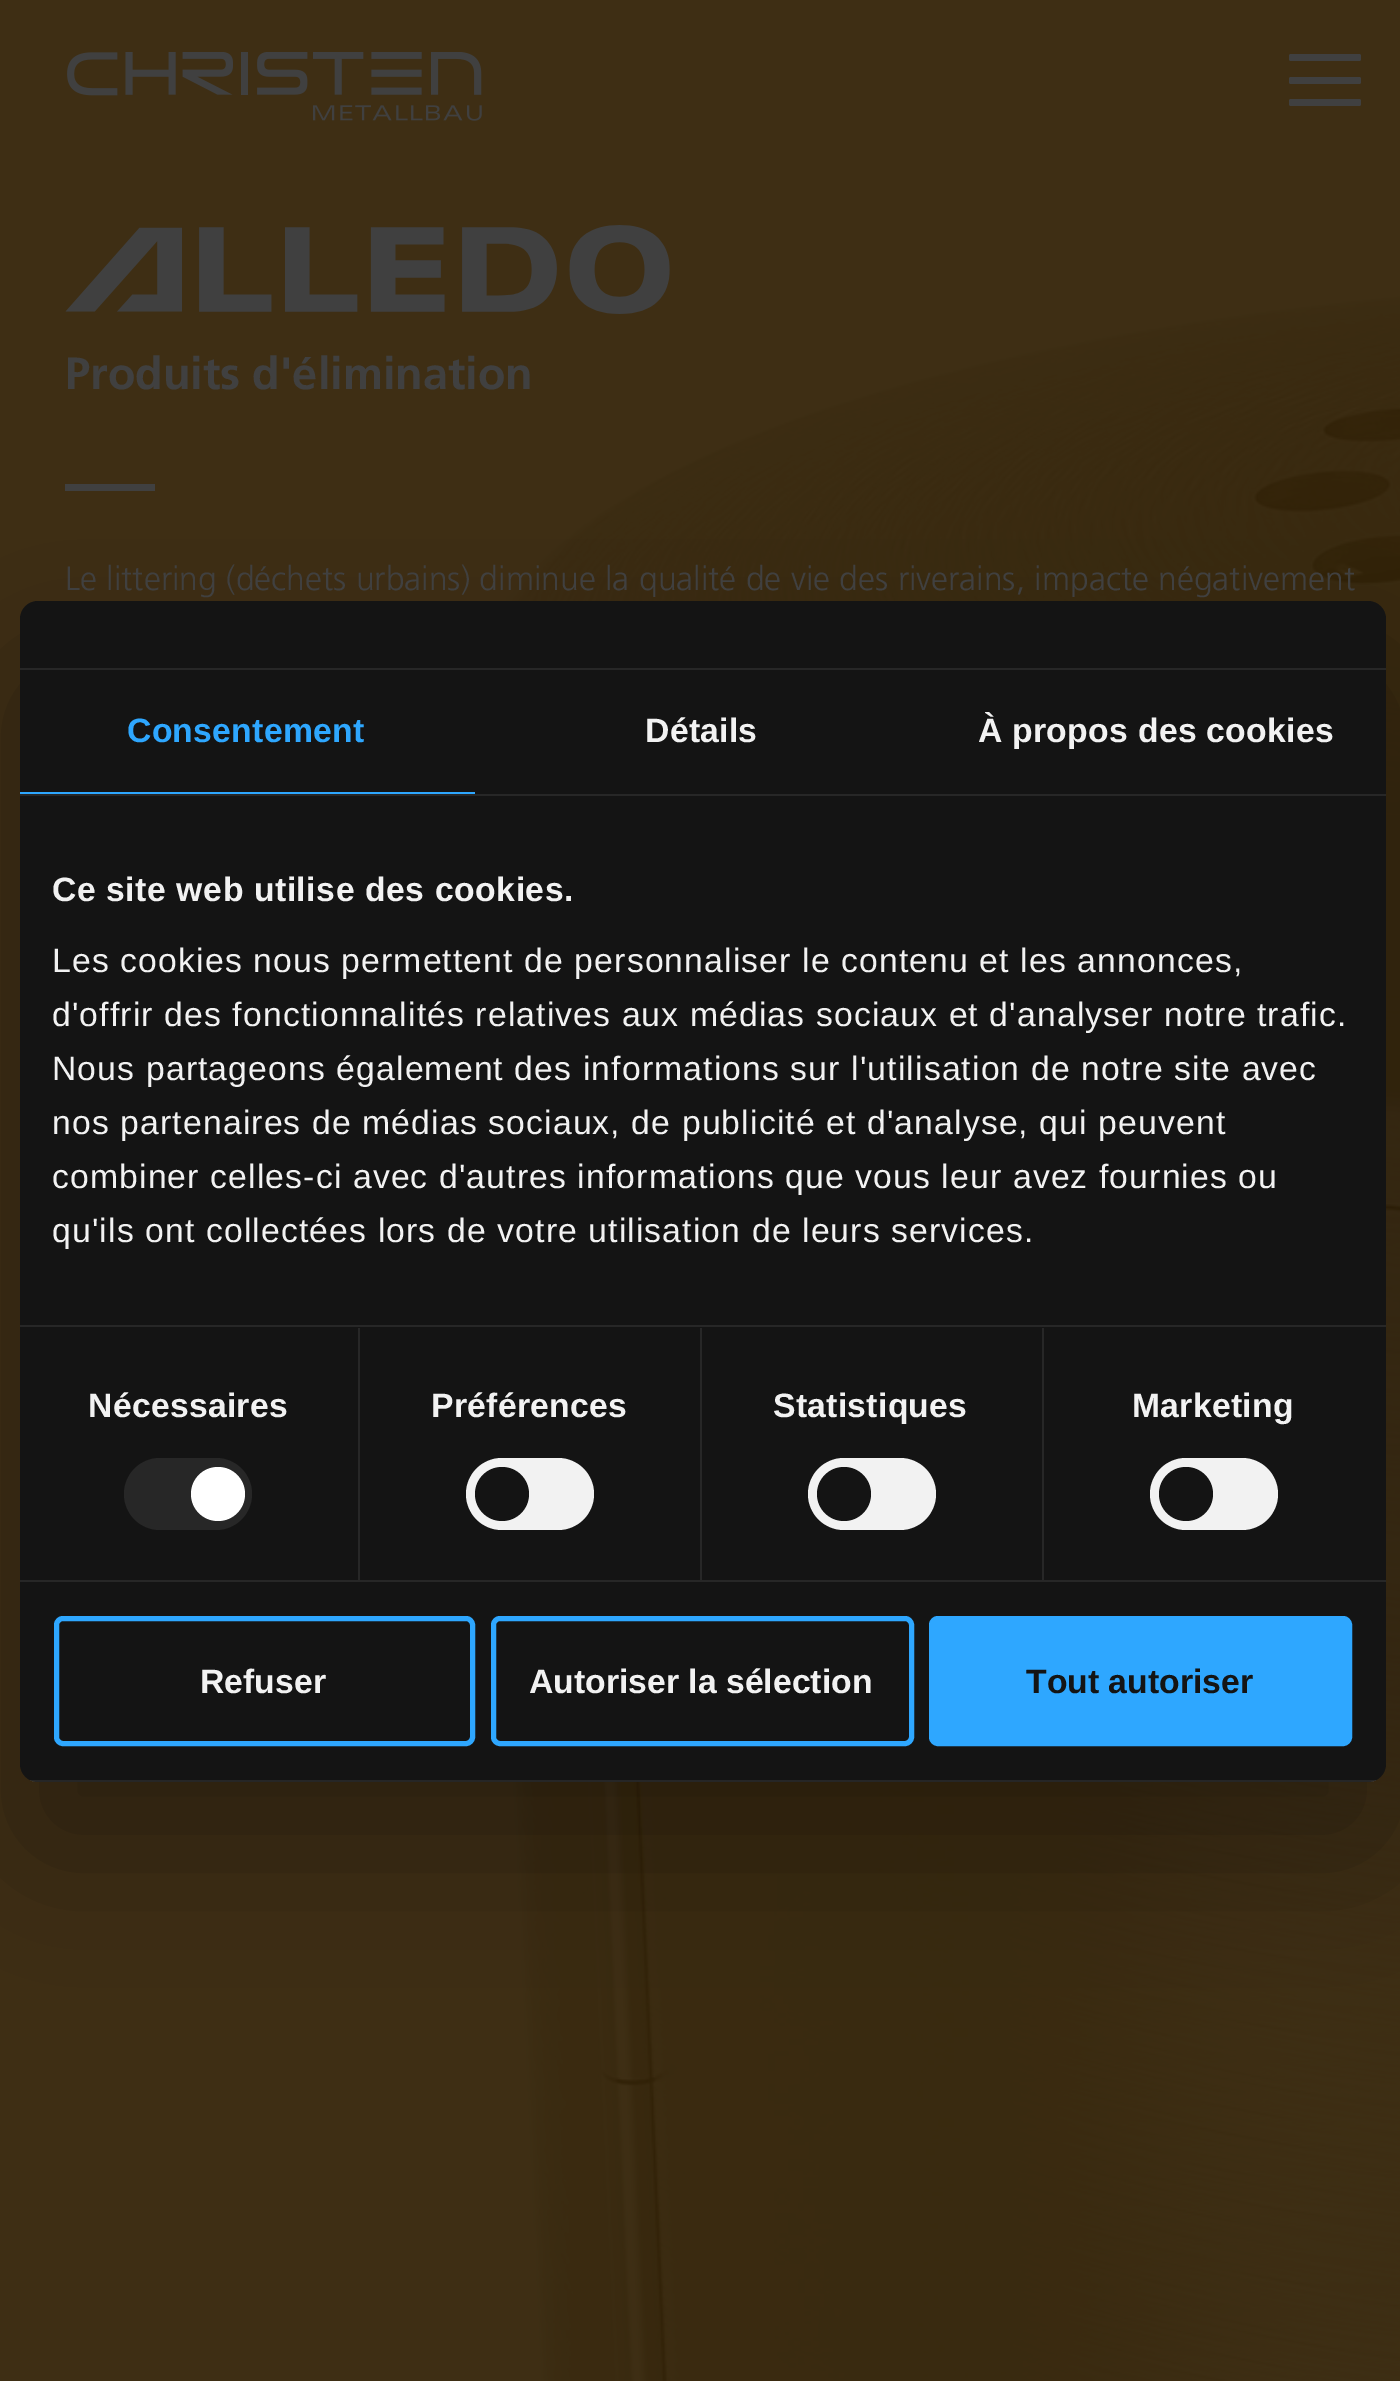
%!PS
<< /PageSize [1400 2381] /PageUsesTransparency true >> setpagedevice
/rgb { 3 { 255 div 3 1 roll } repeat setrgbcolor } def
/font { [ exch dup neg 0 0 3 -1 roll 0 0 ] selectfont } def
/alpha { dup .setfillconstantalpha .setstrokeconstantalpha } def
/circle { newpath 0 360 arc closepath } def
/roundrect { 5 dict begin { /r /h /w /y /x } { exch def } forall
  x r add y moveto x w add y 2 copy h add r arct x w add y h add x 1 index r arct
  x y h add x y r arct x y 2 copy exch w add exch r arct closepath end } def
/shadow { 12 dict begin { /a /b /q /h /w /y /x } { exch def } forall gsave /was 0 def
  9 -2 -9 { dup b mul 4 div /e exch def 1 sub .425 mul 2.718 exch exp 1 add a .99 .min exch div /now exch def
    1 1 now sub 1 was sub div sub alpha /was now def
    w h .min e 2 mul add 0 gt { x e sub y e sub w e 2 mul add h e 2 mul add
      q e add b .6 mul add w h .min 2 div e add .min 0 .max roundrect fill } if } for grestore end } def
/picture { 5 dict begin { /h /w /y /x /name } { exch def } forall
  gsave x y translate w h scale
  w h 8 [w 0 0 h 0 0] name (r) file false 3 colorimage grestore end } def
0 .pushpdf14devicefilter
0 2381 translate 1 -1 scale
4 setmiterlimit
62 46 20 rgb
0 0 1400 2381 rectfill
(img/1.rgb) 67 52 415 69 picture
64 64 64 rgb
1289 54 72 7 2 roundrect fill
1289 77 72 7 2 roundrect fill
1289 99 72 7 2 roundrect fill
(img/2.rgb) 462 296 938 2085 picture
(img/3.rgb) 65 225 605 89 picture
65 484 90 7 rectfill
0 0 0 rgb
20 673 1366 1181 18 76.5 0.3 shadow
20 20 20 rgb
20 601 1366 1181 18 roundrect fill
[
  [20 668 1366 2 39 39 39]
  [20 794 1366 2 39 39 39]
  [20 792 455 2 46 167 255]
  [20 1325 1366 2 39 39 39]
  [20 1580 1366 2 39 39 39]
  [358 1328 2 252 39 39 39]
] { aload pop rgb rectfill } forall
124 1458 128 72 36 roundrect fill
255 255 255 rgb
218 1494 27 circle fill
39 39 39 rgb
700 1328 2 252 rectfill
242 242 242 rgb
466 1458 128 72 36 roundrect fill
20 20 20 rgb
502 1494 27 circle fill
39 39 39 rgb
1042 1328 2 252 rectfill
242 242 242 rgb
808 1458 128 72 36 roundrect fill
20 20 20 rgb
844 1494 27 circle fill
242 242 242 rgb
1150 1458 128 72 36 roundrect fill
20 20 20 rgb
1186 1494 27 circle fill
gsave
20 601 1366 1181 18 roundrect clip newpath
0.08 alpha
255 255 255 rgb
30 1780 1346 2 rectfill
grestore
46 167 255 rgb
5 setlinewidth
56.5 1618.5 416 125 6.5 roundrect stroke
493.5 1618.5 418 125 6.5 roundrect stroke
931.5 1618.5 418 125 6.5 roundrect gsave fill grestore
stroke
/Frutiger-Bold 45 font
64 64 64 rgb
65 389 moveto (Produits d'élimination) show
/Frutiger-Light 33.75 font
65 590 moveto (Le littering \(déchets urbains\) diminue la qualité de vie des riverains, impacte négativement) show
/LiberationSans-Bold 33.75 font
46 167 255 rgb
127 742 moveto 0.25 0 (Consentement) ashow
242 242 242 rgb
645 742 moveto 0.25 0 (Détails) ashow
978 742 moveto 0.25 0 (À propos des cookies) ashow
52 901 moveto 0.55 0 (Ce site web utilise des cookies.) ashow
/LiberationSans-Regular 33.75 font
52 972 moveto 1.12 0 (Les cookies nous permettent de personnaliser le contenu et les annonces,) ashow
52 1026 moveto 1.12 0 (d'offrir des fonctionnalités relatives aux médias sociaux et d'analyser notre trafic.) ashow
52 1080 moveto 1.12 0 (Nous partageons également des informations sur l'utilisation de notre site avec) ashow
52 1134 moveto 1.12 0 (nos partenaires de médias sociaux, de publicité et d'analyse, qui peuvent) ashow
52 1188 moveto 1.12 0 (combiner celles-ci avec d'autres informations que vous leur avez fournies ou) ashow
52 1242 moveto 1.12 0 (qu'ils ont collectées lors de votre utilisation de leurs services.) ashow
/LiberationSans-Bold 33.75 font
88 1417 moveto 0.25 0 (Nécessaires) ashow
431 1417 moveto 0.25 0 (Préférences) ashow
773 1417 moveto 0.25 0 (Statistiques) ashow
1132 1417 moveto 0.25 0 (Marketing) ashow
200 1693 moveto (Refuser) show
529 1693 moveto (Autoriser la sélection) show
20 20 20 rgb
1026 1693 moveto (Tout autoriser) show
.poppdf14devicefilter showpage
